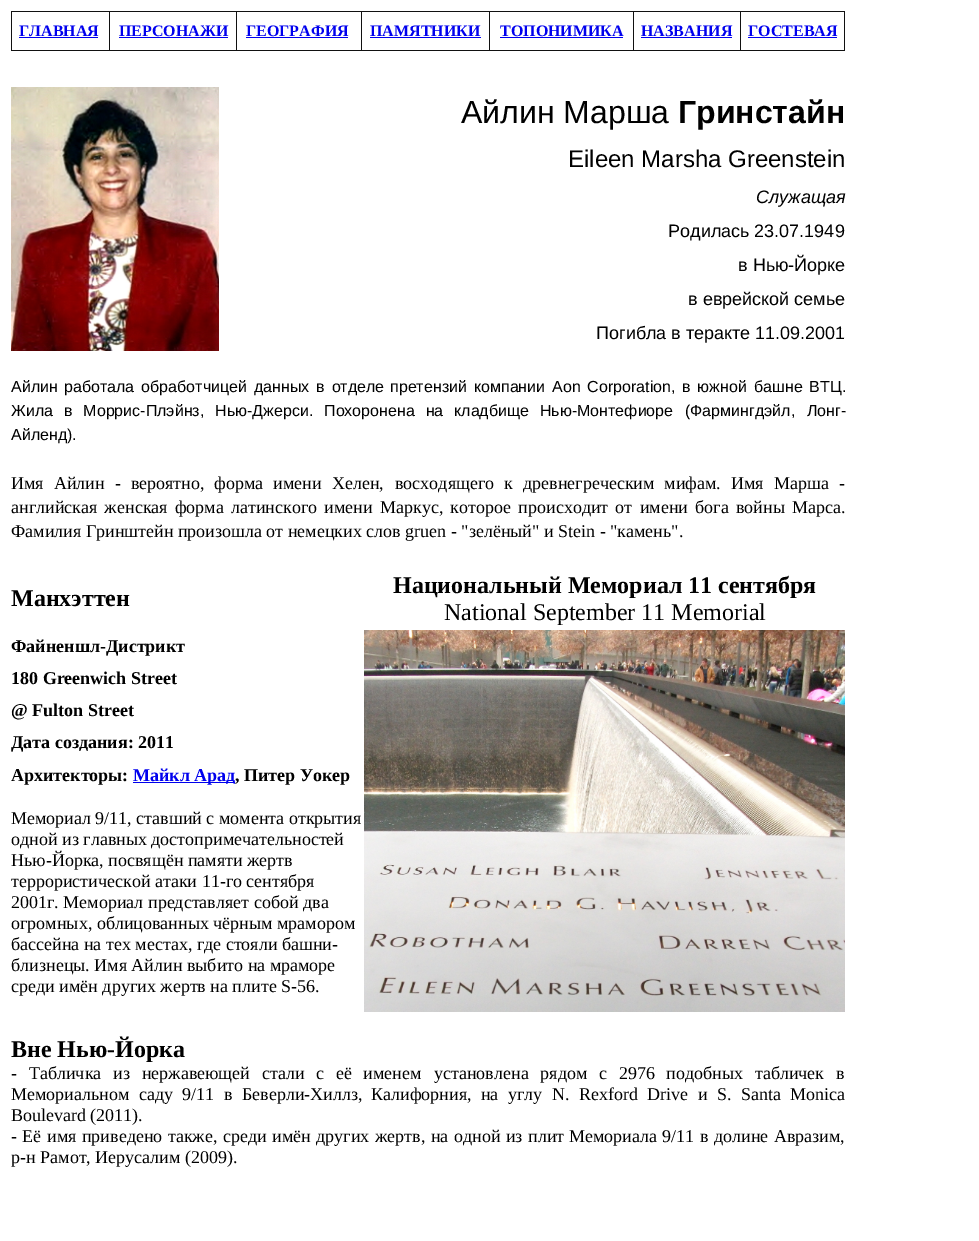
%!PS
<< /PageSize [979 1241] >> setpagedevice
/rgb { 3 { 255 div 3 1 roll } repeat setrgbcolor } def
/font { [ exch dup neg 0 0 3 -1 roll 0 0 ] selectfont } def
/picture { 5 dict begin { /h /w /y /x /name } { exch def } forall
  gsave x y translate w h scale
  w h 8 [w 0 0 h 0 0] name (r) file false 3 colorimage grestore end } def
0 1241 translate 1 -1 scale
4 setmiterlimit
255 255 255 rgb
0 0 979 1241 rectfill
[
  [11 11 834 1 17 17 17]
  [844 11 1 40 17 17 17]
  [11 50 834 1 17 17 17]
  [11 11 1 40 17 17 17]
  [19 37 79 1 0 0 238]
  [109 11 1 40 17 17 17]
  [119 37 109 1 0 0 238]
  [236 11 1 40 17 17 17]
  [246 37 102 1 0 0 238]
  [361 11 1 40 17 17 17]
  [370 37 111 1 0 0 238]
  [489 11 1 40 17 17 17]
  [500 37 123 1 0 0 238]
  [633 11 1 40 17 17 17]
  [641 37 91 1 0 0 238]
  [740 11 1 40 17 17 17]
  [748 37 89 1 0 0 238]
] { aload pop rgb rectfill } forall
(img/1.rgb) 11 87 208 264 picture
(img/2.rgb) 364 630 481 382 picture
133 782 102 1 rectfill
/LiberationSerif-Bold 16 font
[
  [(ГЛАВНАЯ) 19 36]
  [(ПЕРСОНАЖИ) 119 36]
  [(ГЕОГРАФИЯ) 246 36]
  [(ПАМЯТНИКИ) 370 36]
  [(ТОПОНИМИКА) 500 36]
  [(НАЗВАНИЯ) 641 36]
  [(ГОСТЕВАЯ) 748 36]
] { aload pop moveto show } forall
/LiberationSans-Regular 32 font
0 0 0 rgb
461 123 moveto (Айлин Марша) show
/LiberationSans-Bold 32 font
678 123 moveto (Гринстайн) show
/LiberationSans-Regular 24 font
568 167 moveto (Eileen Marsha Greenstein) show
/LiberationSans-Italic 18 font
756 203 moveto (Служащая) show
/LiberationSans-Regular 18 font
[
  [(Родилась 23.07.1949) 668 237]
  [(в Нью-Йорке) 738 271]
  [(в еврейской семье) 688 305]
  [(Погибла в теракте 11.09.2001) 596 339]
] { aload pop moveto show } forall
/LiberationSans-Regular 16 font
11 392 moveto (Айлин) show
64 392 moveto 2.5 0 32 (работала обработчицей данных в отделе) widthshow
390 392 moveto (претензий) show
474 392 moveto (компании) show
552 392 moveto 2.5 0 32 (Aon Corporation,) widthshow
682 392 moveto 2.5 0 32 (в южной башне ВТЦ.) widthshow
11 416 moveto 6.5 0 32 (Жила в Моррис-Плэйнз, Нью-Джерси.) widthshow
324 416 moveto 6.5 0 32 (Похоронена на кладбище Нью-Монтефиоре) widthshow
685 416 moveto 7 0 32 (\(Фармингдэйл, Лонг-) widthshow
11 440 moveto (Айленд\).) show
/LiberationSerif-Regular 18 font
11 489 moveto 5.5 0 32 (Имя Айлин - вероятно, форма имени Хелен,) widthshow
395 489 moveto 5.5 0 32 (восходящего к древнегреческим мифам.) widthshow
731 489 moveto 5.5 0 32 (Имя Марша -) widthshow
11 513 moveto 2.75 0 32 (английская женская форма) widthshow
231 513 moveto 2.75 0 32 (латинского имени Маркус, которое происходит от имени бога войны Марса.) widthshow
11 537 moveto (Фамилия Гринштейн произошла от немецких слов gruen - "зелёный" и Stein - "камень".) show
/LiberationSerif-Bold 24 font
11 606 moveto (Манхэттен) show
393 593 moveto (Национальный Мемориал 11 сентября) show
/LiberationSerif-Regular 24 font
444 620 moveto (National September 11 Memorial) show
/LiberationSerif-Bold 18 font
[
  [(Файненшл-Дистрикт) 11 652]
  [(180 Greenwich Street) 11 684]
  [(@ Fulton Street) 11 716]
  [(Дата создания: 2011) 11 748]
  [(Архитекторы:) 11 781]
] { aload pop moveto show } forall
0 0 238 rgb
133 781 moveto (Майкл Арад) show
0 0 0 rgb
235 781 moveto (, Питер Уокер) show
/LiberationSerif-Regular 18 font
[
  [(Мемориал 9/11, ставший с момента открытия) 11 824]
  [(одной из главных достопримечательностей) 11 845]
  [(Нью-Йорка, посвящён памяти жертв) 11 866]
  [(террористической атаки 11-го сентября) 11 887]
  [(2001г. Мемориал представляет собой два) 11 908]
  [(огромных, облицованных чёрным мрамором) 11 929]
  [(бассейна на тех местах, где стояли башни-) 11 950]
  [(близнецы. Имя Айлин выбито на мраморе) 11 971]
  [(среди имён других жертв на плите S-56.) 11 992]
] { aload pop moveto show } forall
/LiberationSerif-Bold 24 font
11 1057 moveto (Вне Нью-Йорка) show
/LiberationSerif-Regular 18 font
11 1079 moveto 7.25 0 32 (- Табличка из нержавеющей стали с её именем) widthshow
434 1079 moveto 7.25 0 32 (установлена рядом с 2976 подобных табличек в) widthshow
11 1100 moveto 5 0 32 (Мемориальном саду 9/11 в Беверли-Хиллз,) widthshow
371 1100 moveto 5 0 32 (Калифорния, на углу N. Rexford Drive и S. Santa Monica) widthshow
11 1121 moveto (Boulevard \(2011\).) show
11 1142 moveto 1 0 32 (- Её имя приведено также, среди имён других) widthshow
375 1142 moveto 1 0 32 (жертв, на одной из) widthshow
528 1142 moveto (плит) show
569 1142 moveto 1 0 32 (Мемориала 9/11 в долине Авразим,) widthshow
11 1163 moveto (р-н Рамот, Иерусалим \(2009\).) show
showpage
